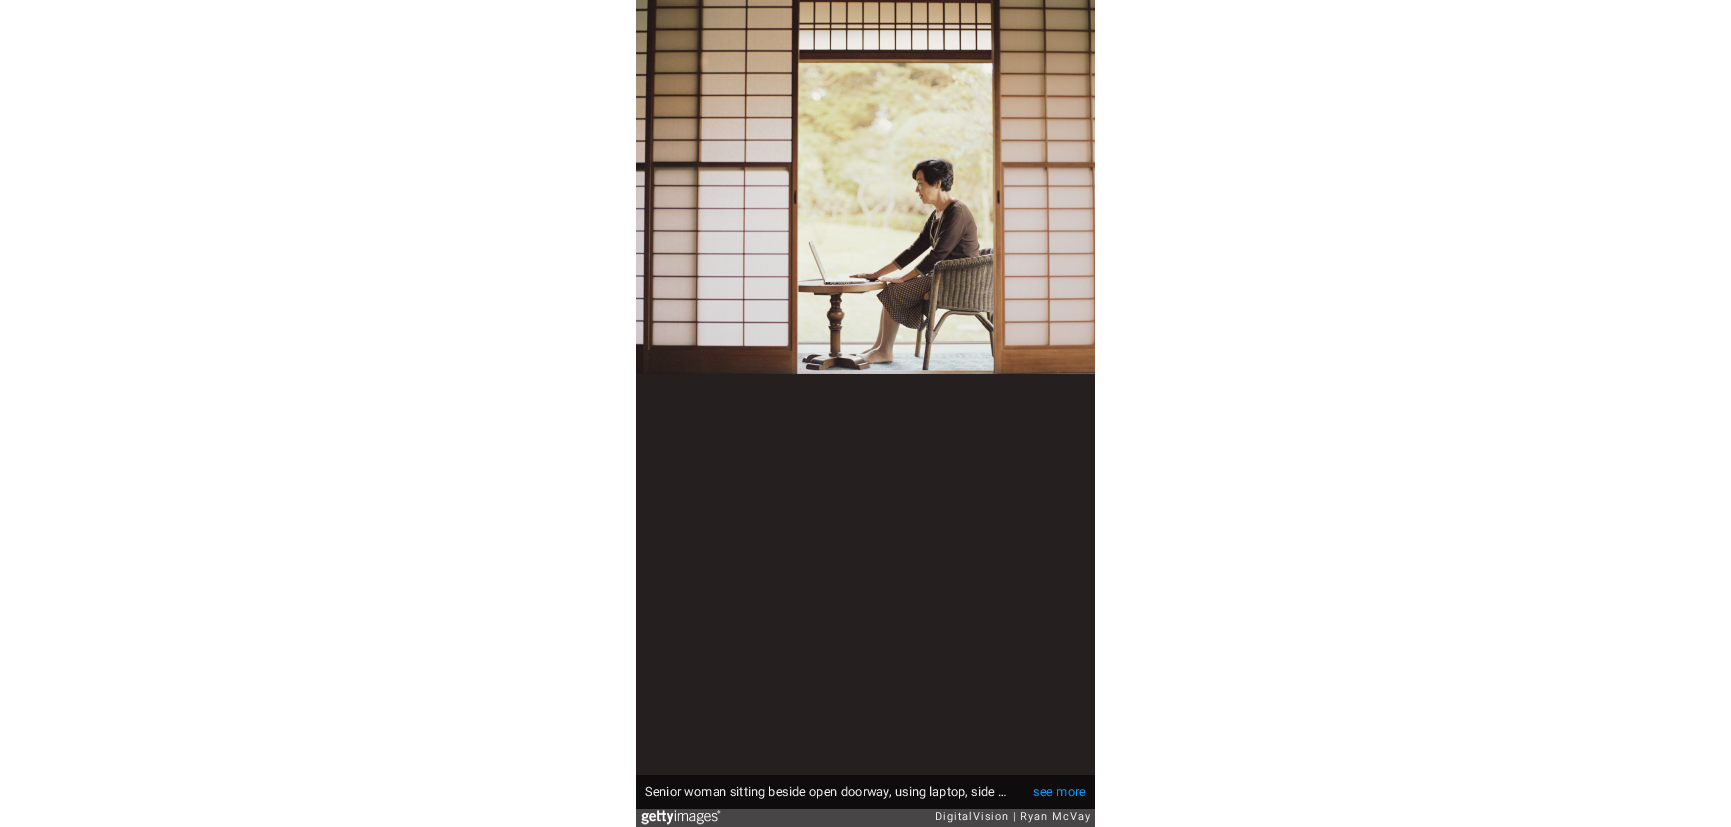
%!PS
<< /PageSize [1731 827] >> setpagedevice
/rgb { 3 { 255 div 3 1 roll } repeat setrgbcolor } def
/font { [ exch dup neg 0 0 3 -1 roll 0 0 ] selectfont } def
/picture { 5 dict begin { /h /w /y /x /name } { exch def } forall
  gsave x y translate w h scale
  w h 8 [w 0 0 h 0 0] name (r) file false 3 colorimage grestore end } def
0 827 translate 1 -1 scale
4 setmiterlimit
255 255 255 rgb
0 0 1731 827 rectfill
37 31 32 rgb
636 374 459 401 rectfill
(img/1.rgb) 636 0 459 374 picture
15 12 13 rgb
636 775 459 34 rectfill
71 69 69 rgb
636 809 459 18 rectfill
(img/2.rgb) 641 810 80 15 picture
/Roboto-Regular 12.8 font
238 238 238 rgb
645 796 moveto (Senior woman sitting beside open doorway, using laptop, side …) show
0 153 255 rgb
1033 796 moveto (see more) show
/Roboto-Regular 11 font
238 238 238 rgb
935 820 moveto 1 0 (DigitalVision | Ryan McVay) ashow
showpage
